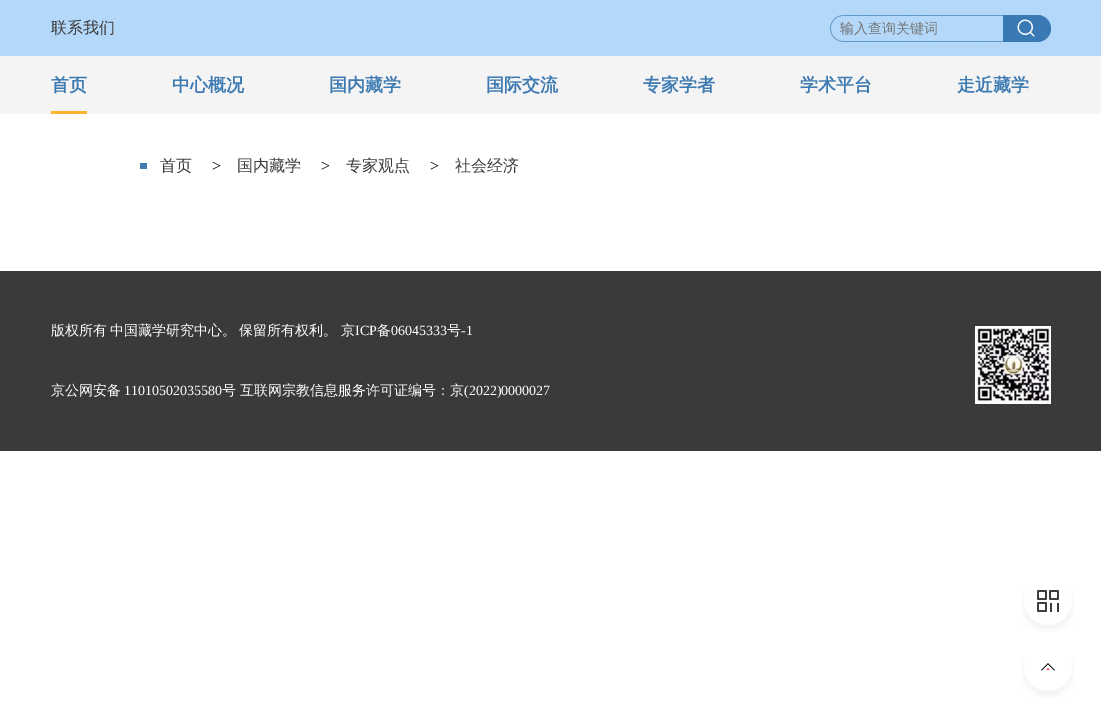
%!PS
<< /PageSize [1101 724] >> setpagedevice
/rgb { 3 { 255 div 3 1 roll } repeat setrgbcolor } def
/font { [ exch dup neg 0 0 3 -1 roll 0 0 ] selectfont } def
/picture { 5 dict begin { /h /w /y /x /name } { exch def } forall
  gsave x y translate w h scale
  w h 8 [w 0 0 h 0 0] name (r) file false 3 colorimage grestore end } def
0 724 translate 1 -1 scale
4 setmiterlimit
255 255 255 rgb
0 0 1101 724 rectfill
179 216 249 rgb
0 0 1101 56 rectfill
(img/1.rgb) 830 15 221 27 picture
[
  [0 56 1101 58 244 244 244]
  [51 111 36 3 253 179 44]
  [140 163 7 6 66 126 180]
  [0 271 1101 180 58 58 58]
] { aload pop rgb rectfill } forall
(img/2.rgb) 975 326 76 78 picture
(img/3.rgb) 1021 590 54 42 picture
(img/4.rgb) 1021 657 54 41 picture
/WenQuanYiZenHei-Medium 16 font
60 58 59 rgb
51 33 moveto (联系我们) show
gsave
840 20 163 18 rectclip
/WenQuanYiZenHei-Medium 14 font
117 117 117 rgb
840 33 moveto (输入查询关键词) show
grestore
/WenQuanYiZenHei-Bold 18 font
61 123 178 rgb
[
  [(首页) 51 91]
  [(中心概况) 172 91]
  [(国内藏学) 329 91]
  [(国际交流) 486 91]
  [(专家学者) 643 91]
  [(学术平台) 800 91]
  [(走近藏学) 957 91]
] { aload pop moveto show } forall
/WenQuanYiZenHei-Medium 16 font
60 58 59 rgb
160 171 moveto (首页) show
/LiberationSerif-Regular 16 font
0 0 0 rgb
212 171 moveto (>) show
/WenQuanYiZenHei-Medium 16 font
60 58 59 rgb
237 171 moveto (国内藏学) show
/LiberationSerif-Regular 16 font
0 0 0 rgb
321 171 moveto (>) show
/WenQuanYiZenHei-Medium 16 font
60 58 59 rgb
346 171 moveto (专家观点) show
/LiberationSerif-Regular 16 font
0 0 0 rgb
430 171 moveto (>) show
/WenQuanYiZenHei-Medium 16 font
60 58 59 rgb
455 171 moveto (社会经济) show
/WenQuanYiZenHei-Medium 14 font
255 255 255 rgb
51 335 moveto -1 0 32 (版权所有 中国藏学研究中心。 保留所有权利。 京) widthshow
/LiberationSerif-Regular 14 font
355 335 moveto (ICP) show
/WenQuanYiZenHei-Medium 14 font
377 335 moveto (备) show
/LiberationSerif-Regular 14 font
391 335 moveto (06045333) show
/WenQuanYiZenHei-Medium 14 font
447 335 moveto (号) show
/LiberationSerif-Regular 14 font
461 335 moveto (-1) show
/WenQuanYiZenHei-Medium 14 font
51 395 moveto (京公网安备) show
/LiberationSerif-Regular 14 font
124 395 moveto (11010502035580) show
/WenQuanYiZenHei-Medium 14 font
222 395 moveto (号 互联网宗教信息服务许可证编号：京) show
/LiberationSerif-Regular 14 font
464 395 moveto (\(2022\)0000027) show
showpage
